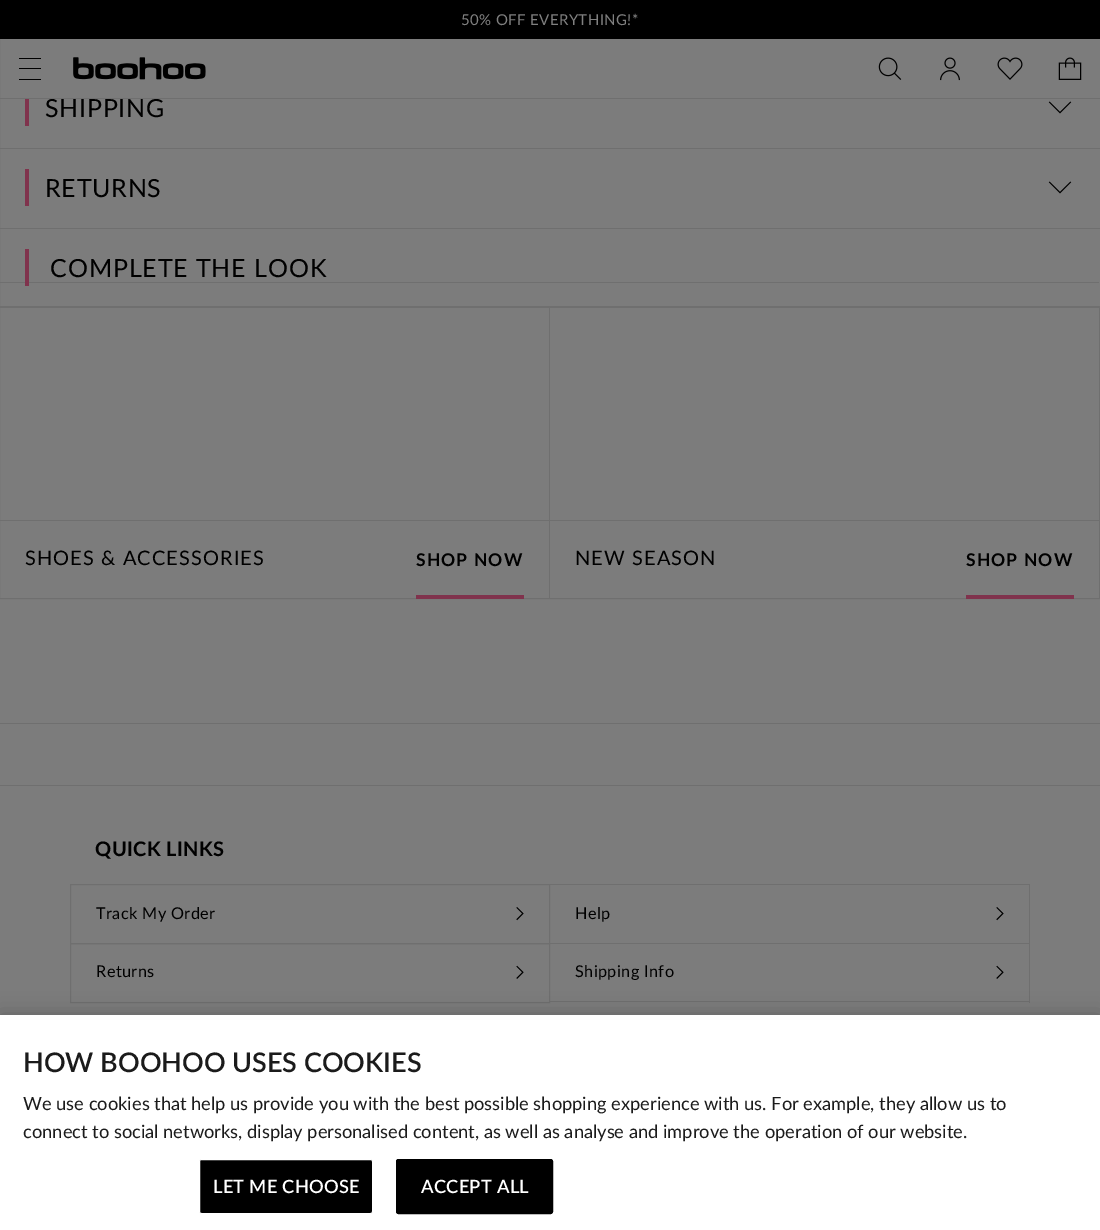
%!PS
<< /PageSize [1100 1230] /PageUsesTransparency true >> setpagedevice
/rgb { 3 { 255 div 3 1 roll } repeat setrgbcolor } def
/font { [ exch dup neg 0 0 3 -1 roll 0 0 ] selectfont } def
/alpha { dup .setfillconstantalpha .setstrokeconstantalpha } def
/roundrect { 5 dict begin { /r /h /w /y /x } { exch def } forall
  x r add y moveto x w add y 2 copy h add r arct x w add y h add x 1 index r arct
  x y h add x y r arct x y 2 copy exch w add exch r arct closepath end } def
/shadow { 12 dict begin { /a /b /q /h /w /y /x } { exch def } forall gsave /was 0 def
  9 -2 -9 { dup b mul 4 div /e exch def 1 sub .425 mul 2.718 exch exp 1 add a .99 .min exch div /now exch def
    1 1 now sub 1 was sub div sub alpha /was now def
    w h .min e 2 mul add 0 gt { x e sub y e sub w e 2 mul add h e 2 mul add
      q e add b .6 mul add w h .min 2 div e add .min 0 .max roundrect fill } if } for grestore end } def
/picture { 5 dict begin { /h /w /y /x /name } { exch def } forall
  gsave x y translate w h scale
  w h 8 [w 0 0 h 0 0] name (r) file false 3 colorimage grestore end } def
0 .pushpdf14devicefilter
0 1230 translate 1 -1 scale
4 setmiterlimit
124 124 124 rgb
0 0 1100 1230 rectfill
111 111 111 rgb
-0.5 -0.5 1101 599 rectstroke
[
  [0 0 1100 39 0 0 0]
  [19 58 22 1 0 0 0]
  [19 79 22 1 0 0 0]
  [19 68 22 1 0 0 0]
] { aload pop rgb rectfill } forall
(img/1.rgb) 73 57 133 23 picture
(img/2.rgb) 878 57 24 23 picture
(img/3.rgb) 940 57 20 24 picture
(img/4.rgb) 997 57 26 23 picture
(img/5.rgb) 1058 57 24 23 picture
111 111 111 rgb
0 148 1100 1 rectfill
128 51 77 rgb
25 99 4 27 rectfill
(img/6.rgb) 1048 101 24 13 picture
111 111 111 rgb
0 228 1100 1 rectfill
128 51 77 rgb
25 169 4 37 rectfill
(img/7.rgb) 1048 181 24 13 picture
111 111 111 rgb
-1 253 moveto -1 283 lineto 1099 283 lineto 1099 282 lineto 0 282 lineto 0 253 lineto closepath fill
[
  [25 249 4 37 128 51 77]
  [0 306 1100 2 111 111 111]
  [549 308 1 290 111 111 111]
  [0 520 549 1 111 111 111]
  [416 595 108 4 128 51 77]
  [1099 308 1 290 111 111 111]
  [550 520 549 1 111 111 111]
  [966 595 108 4 128 51 77]
  [0 723 1100 1 111 111 111]
  [0 785 1100 1 111 111 111]
] { aload pop rgb rectfill } forall
70.5 884.5 479 59 rectstroke
(img/8.rgb) 516 907 8 14 picture
[
  [550 884 480 1 111 111 111]
  [1029 884 1 60 111 111 111]
  [550 943 480 1 111 111 111]
] { aload pop rgb rectfill } forall
(img/8.rgb) 996 907 8 14 picture
70.5 943.5 479 59 rectstroke
(img/9.rgb) 516 965 8 14 picture
1029 943 1 60 rectfill
550 1001 480 1 rectfill
(img/9.rgb) 996 965 8 14 picture
0 0 0 rgb
0 1015 1100 215 0 11 0.2 shadow
255 255 255 rgb
0 1015 1100 215 rectfill
0 0 0 rgb
199.5 1159.5 173 54 2 roundrect gsave fill grestore
255 255 255 rgb
stroke
0 0 0 rgb
396.5 1159.5 156 54 2 roundrect gsave fill grestore
stroke
/Lato-Regular 15 font
128 128 128 rgb
461 25 moveto 0.4 0 (50% OFF EVERYTHING!*) ashow
/Lato-Regular 25 font
0 0 0 rgb
45 117 moveto 0.75 0 (SHIPPING) ashow
111 111 111 rgb
0 98 1100 1 rectfill
0 0 0 rgb
45 197 moveto 0.75 0 (RETURNS) ashow
50 277 moveto 0.9 0 (COMPLETE THE LOOK) ashow
/Lato-Regular 20 font
25 565 moveto 1.1 0 (SHOES & ACCESSORIES) ashow
/Lato-Bold 17.5 font
416 566 moveto 1.1 0 (SHOP NOW) ashow
/Lato-Regular 20 font
575 565 moveto 1.1 0 (NEW SEASON) ashow
/Lato-Bold 17.5 font
966 566 moveto 1.1 0 (SHOP NOW) ashow
/Lato-Bold 20 font
95 856 moveto 0.4 0 (QUICK LINKS) ashow
/Lato-Regular 16.25 font
96 919 moveto 0.4 0 (Track My Order) ashow
575 919 moveto 0.4 0 (Help) ashow
96 977 moveto 0.4 0 (Returns) ashow
575 977 moveto 0.4 0 (Shipping Info) ashow
/Lato-SemiBold 27 font
27 27 27 rgb
23 1072 moveto (HOW BOOHOO USES COOKIES) show
/Lato-Regular 18.3 font
23 1110 moveto (We use cookies that help us provide you with the best possible shopping experience with us. For example, they allow us to) show
23 1138 moveto (connect to social networks, display personalised content, as well as analyse and improve the operation of our website.) show
/Lato-SemiBold 18.3 font
255 255 255 rgb
213 1193 moveto 0.25 0 (LET ME CHOOSE) ashow
421 1193 moveto 0.25 0 (ACCEPT ALL) ashow
.poppdf14devicefilter showpage
